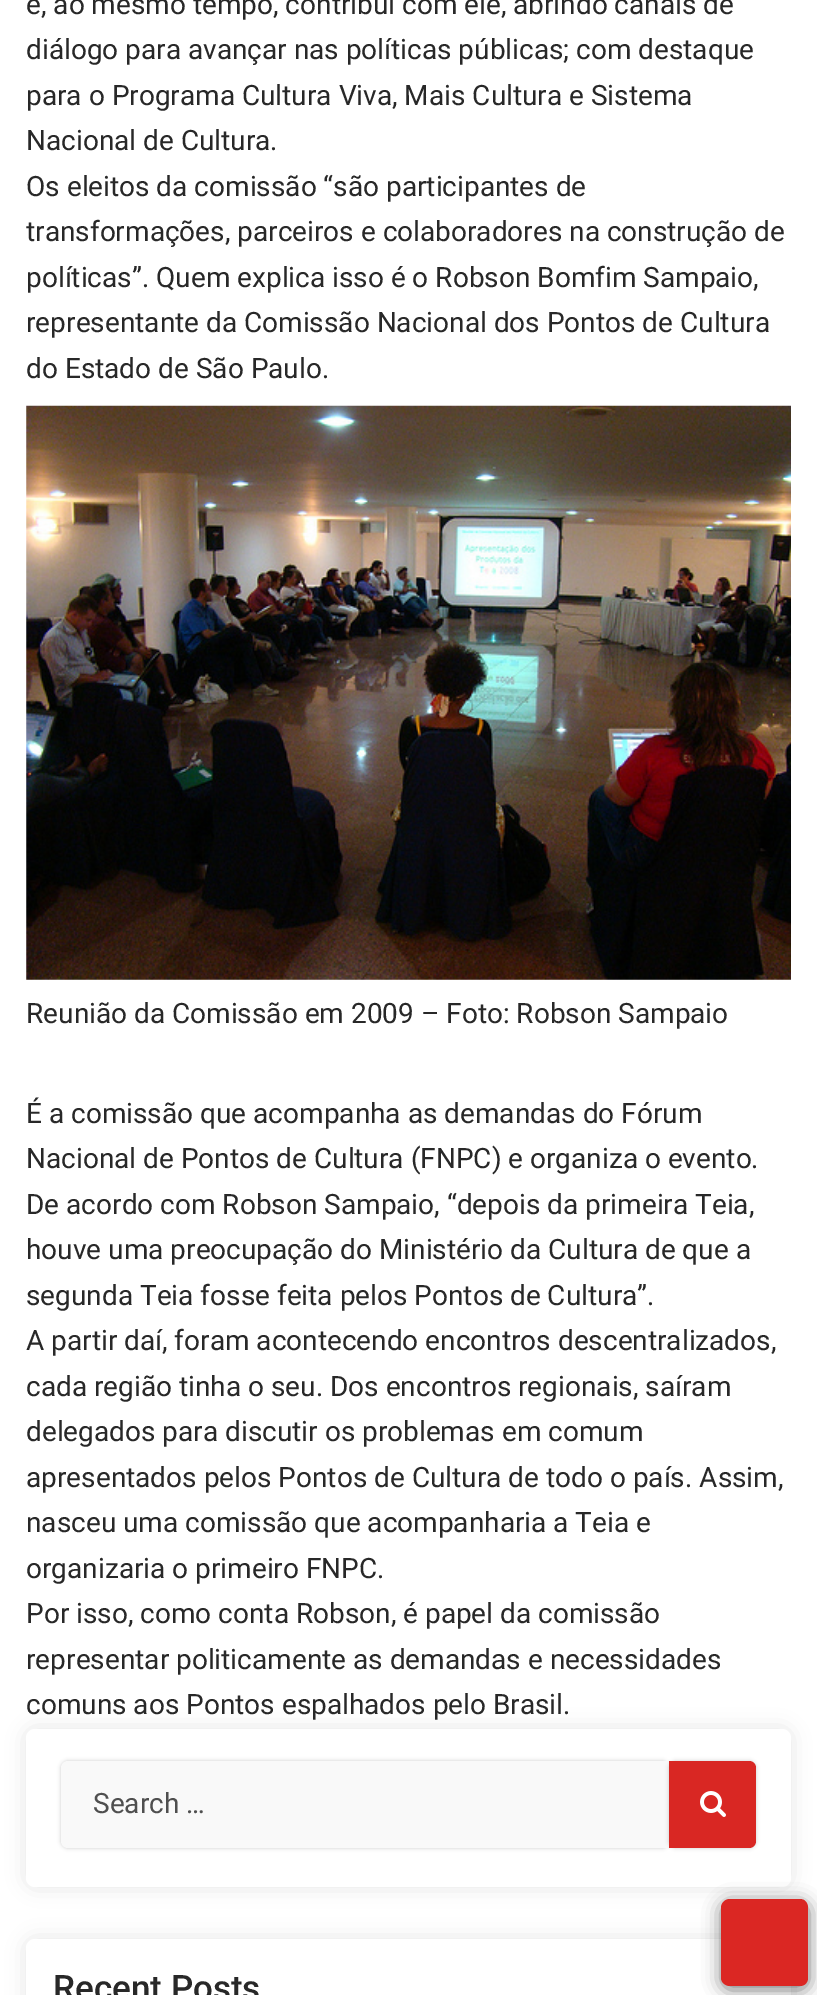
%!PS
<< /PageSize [817 1995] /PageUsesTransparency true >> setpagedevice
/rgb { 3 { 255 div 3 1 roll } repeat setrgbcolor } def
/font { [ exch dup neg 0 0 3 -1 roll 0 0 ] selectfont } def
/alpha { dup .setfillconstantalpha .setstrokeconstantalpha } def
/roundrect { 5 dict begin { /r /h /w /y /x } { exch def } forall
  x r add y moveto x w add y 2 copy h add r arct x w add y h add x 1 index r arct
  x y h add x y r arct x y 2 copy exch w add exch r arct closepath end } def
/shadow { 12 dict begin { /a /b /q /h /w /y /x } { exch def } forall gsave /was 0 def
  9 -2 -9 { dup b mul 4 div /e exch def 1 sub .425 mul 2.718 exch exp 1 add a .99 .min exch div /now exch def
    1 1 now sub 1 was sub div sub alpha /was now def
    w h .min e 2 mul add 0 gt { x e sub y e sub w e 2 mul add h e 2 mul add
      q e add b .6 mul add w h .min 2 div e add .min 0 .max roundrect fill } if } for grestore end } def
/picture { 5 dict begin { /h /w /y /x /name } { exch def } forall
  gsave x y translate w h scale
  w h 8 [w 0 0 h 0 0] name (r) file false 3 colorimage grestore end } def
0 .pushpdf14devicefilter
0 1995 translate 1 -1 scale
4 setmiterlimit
255 255 255 rgb
0 0 817 1995 rectfill
(img/1.rgb) 26 405 765 575 picture
0 0 0 rgb
28 1731 761 154 7 10.5 0.12 shadow
255 255 255 rgb
26 1729 765 158 9 roundrect fill
7 7 6 rgb
61 1761 608 87 7 2 0.2 shadow
249 249 249 rgb
68 1761 moveto 669 1761 lineto 669 1848 lineto 68 1848 lineto 64 1848 61 1845 61 1841 curveto 61 1768 lineto 61 1764 64 1761 68 1761 curveto closepath fill
7 7 6 rgb
669 1761 87 87 7 2 0.2 shadow
217 39 35 rgb
669 1761 moveto 749 1761 lineto 753 1761 756 1764 756 1768 curveto 756 1841 lineto 756 1845 753 1848 749 1848 curveto 669 1848 lineto closepath fill
(img/2.rgb) 700 1791 26 26 picture
0 0 0 rgb
28 1941 761 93 7 10.5 0.12 shadow
255 255 255 rgb
26 1939 765 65 9 roundrect fill
0 0 0 rgb
721 1902 88 88 9 9 0.5 shadow
219 39 35 rgb
800 1986 moveto 730 1986 lineto 725 1986 721 1982 721 1978 curveto 721 1908 lineto 721 1903 725 1899 730 1899 curveto 800 1899 lineto 805 1899 808 1903 808 1908 curveto 808 1978 lineto 808 1982 805 1986 800 1986 curveto closepath fill
/Roboto-Regular 28 font
40 40 40 rgb
[
  [(e, ao mesmo tempo, contribui com ele, abrindo canais de) 26 14]
  [(diálogo para avançar nas políticas públicas; com destaque) 26 59]
  [(para o Programa Cultura Viva, Mais Cultura e Sistema) 26 105]
  [(Nacional de Cultura.) 26 150]
  [(Os eleitos da comissão “são participantes de) 26 196]
  [(transformações, parceiros e colaboradores na construção de) 26 241]
  [(políticas”. Quem explica isso é o Robson Bomfim Sampaio,) 26 287]
  [(representante da Comissão Nacional dos Pontos de Cultura) 26 332]
  [(do Estado de São Paulo.) 26 378]
  [(Reunião da Comissão em 2009 – Foto: Robson Sampaio) 26 1023]
  [(É a comissão que acompanha as demandas do Fórum) 26 1123]
  [(Nacional de Pontos de Cultura \(FNPC\) e organiza o evento.) 26 1168]
  [(De acordo com Robson Sampaio, “depois da primeira Teia,) 26 1214]
  [(houve uma preocupação do Ministério da Cultura de que a) 26 1259]
  [(segunda Teia fosse feita pelos Pontos de Cultura”.) 26 1305]
  [(A partir daí, foram acontecendo encontros descentralizados,) 26 1350]
  [(cada região tinha o seu. Dos encontros regionais, saíram) 26 1396]
  [(delegados para discutir os problemas em comum) 26 1441]
  [(apresentados pelos Pontos de Cultura de todo o país. Assim,) 26 1487]
  [(nasceu uma comissão que acompanharia a Teia e) 26 1532]
  [(organizaria o primeiro FNPC.) 26 1578]
  [(Por isso, como conta Robson, é papel da comissão) 26 1623]
  [(representar politicamente as demandas e necessidades) 26 1669]
  [(comuns aos Pontos espalhados pelo Brasil.) 26 1714]
] { aload pop moveto show } forall
79 79 79 rgb
93 1813 moveto (Search …) show
/Roboto-Medium 35 font
40 40 40 rgb
53 2000 moveto (Recent Posts) show
.poppdf14devicefilter showpage
